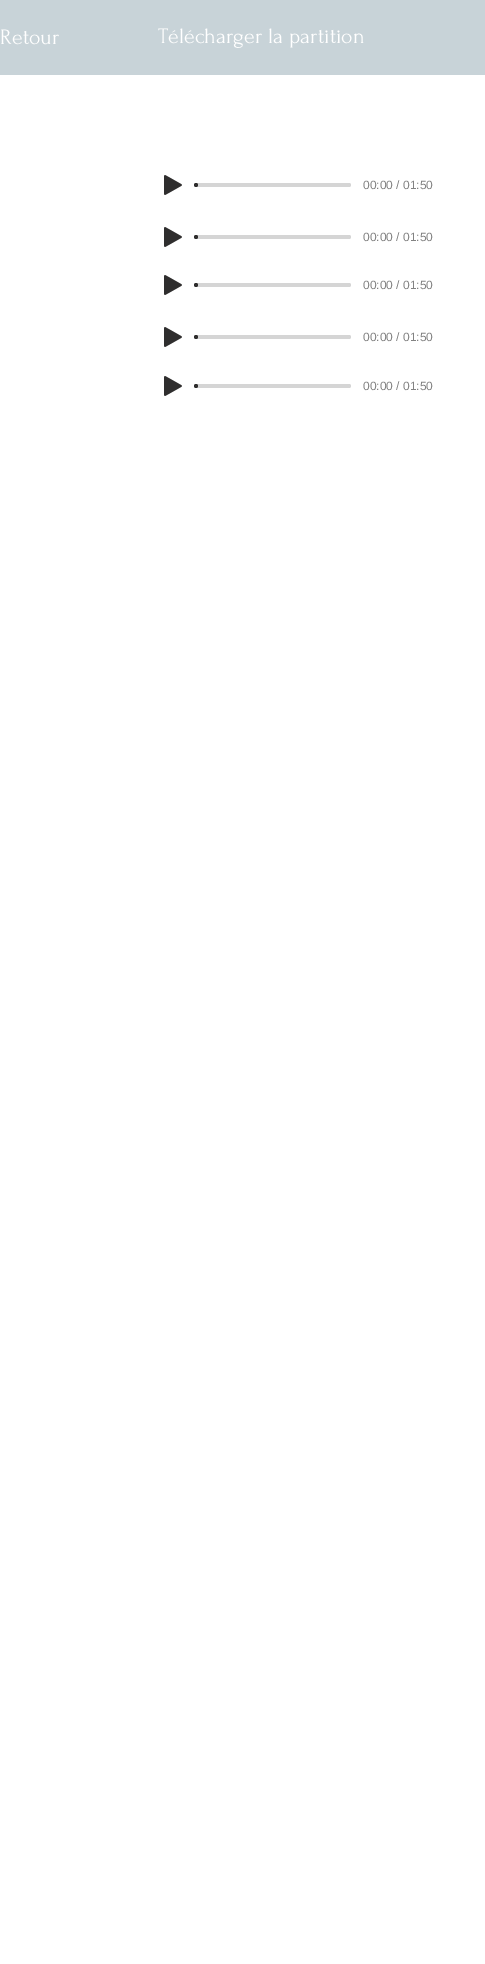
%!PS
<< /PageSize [485 1964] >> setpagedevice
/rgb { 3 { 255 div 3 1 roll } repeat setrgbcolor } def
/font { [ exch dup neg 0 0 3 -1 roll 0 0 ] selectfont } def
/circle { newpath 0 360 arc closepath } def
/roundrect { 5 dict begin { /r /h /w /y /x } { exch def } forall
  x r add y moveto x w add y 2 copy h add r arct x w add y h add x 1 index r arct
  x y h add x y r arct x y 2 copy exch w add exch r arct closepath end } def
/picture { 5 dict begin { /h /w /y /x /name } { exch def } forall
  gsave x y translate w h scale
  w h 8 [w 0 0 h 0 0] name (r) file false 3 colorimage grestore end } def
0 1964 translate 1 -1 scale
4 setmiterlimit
255 255 255 rgb
0 0 485 1964 rectfill
200 211 216 rgb
0 0 485 75 rectfill
(img/1.rgb) 164 175 18 20 picture
213 213 213 rgb
196 183 155 4 2 roundrect fill
47 46 46 rgb
196 185 2 circle fill
(img/1.rgb) 164 227 18 20 picture
213 213 213 rgb
196 235 155 4 2 roundrect fill
47 46 46 rgb
196 237 2 circle fill
(img/1.rgb) 164 275 18 20 picture
213 213 213 rgb
196 283 155 4 2 roundrect fill
47 46 46 rgb
196 285 2 circle fill
(img/1.rgb) 164 327 18 20 picture
213 213 213 rgb
196 335 155 4 2 roundrect fill
47 46 46 rgb
196 337 2 circle fill
(img/1.rgb) 164 376 18 20 picture
213 213 213 rgb
196 384 155 4 2 roundrect fill
47 46 46 rgb
196 386 2 circle fill
/Forum-Regular 22 font
255 255 255 rgb
0 44 moveto (Retour) show
158 43 moveto (Télécharger la partition) show
/LiberationSans-Regular 12 font
130 130 130 rgb
[
  [(00:00 / 01:50) 363 189]
  [(00:00 / 01:50) 363 241]
  [(00:00 / 01:50) 363 289]
  [(00:00 / 01:50) 363 341]
  [(00:00 / 01:50) 363 390]
] { aload pop moveto show } forall
showpage
